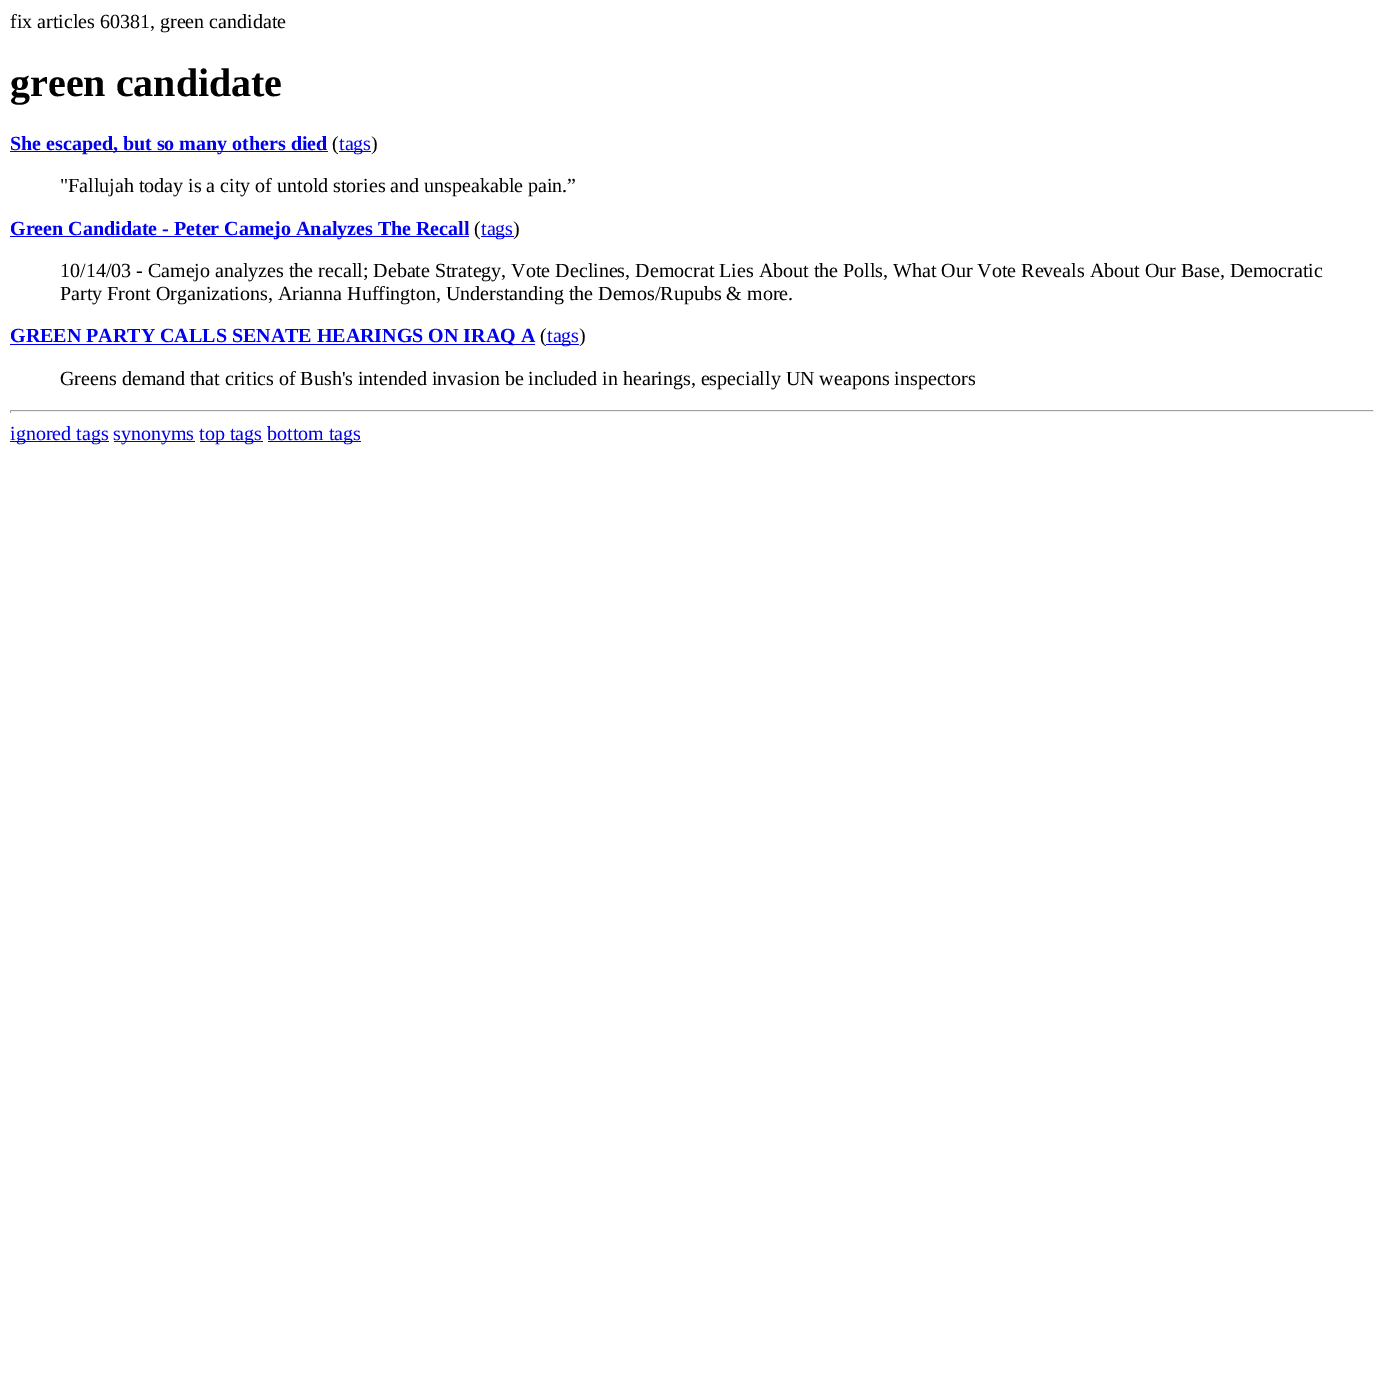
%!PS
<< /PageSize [1383 1400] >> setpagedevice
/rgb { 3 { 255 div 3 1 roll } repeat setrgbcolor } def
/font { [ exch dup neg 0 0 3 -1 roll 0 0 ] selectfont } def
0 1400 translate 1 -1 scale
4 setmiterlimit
255 255 255 rgb
0 0 1383 1400 rectfill
[
  [10 151 318 1 0 0 238]
  [339 151 32 1 0 0 238]
  [10 236 459 1 0 0 238]
  [481 236 33 1 0 0 238]
  [10 344 525 1 0 0 238]
  [10 410 1364 1 159 159 159]
  [1373 410 1 3 238 238 238]
  [10 411 1364 1 238 238 238]
  [10 410 1 3 159 159 159]
  [10 441 99 1 0 0 238]
  [114 441 81 1 0 0 238]
  [200 441 63 1 0 0 238]
  [268 441 93 1 0 0 238]
] { aload pop rgb rectfill } forall
/LiberationSerif-Regular 20 font
0 0 0 rgb
10 28 moveto (fix articles 60381, green candidate) show
/LiberationSerif-Bold 40 font
10 96 moveto (green candidate) show
/LiberationSerif-Bold 20 font
0 0 238 rgb
10 150 moveto (She escaped, but so many others died) show
/LiberationSerif-Regular 20 font
0 0 0 rgb
332 150 moveto (\() show
0 0 238 rgb
339 150 moveto (tags) show
0 0 0 rgb
371 150 moveto (\)) show
60 192 moveto ("Fallujah today is a city of untold stories and unspeakable pain.”) show
/LiberationSerif-Bold 20 font
0 0 238 rgb
10 235 moveto (Green Candidate - Peter Camejo Analyzes The Recall) show
/LiberationSerif-Regular 20 font
0 0 0 rgb
474 235 moveto (\() show
0 0 238 rgb
481 235 moveto (tags) show
0 0 0 rgb
[
  [(\)) 513 235]
  [(10/14/03 - Camejo analyzes the recall; Debate Strategy, Vote Declines, Democrat Lies About the Polls, What Our Vote Reveals About Our Base, Democratic) 60 277]
  [(Party Front Organizations, Arianna Huffington, Understanding the Demos/Rupubs & more.) 60 300]
] { aload pop moveto show } forall
/LiberationSerif-Bold 20 font
0 0 238 rgb
10 342 moveto (GREEN PARTY CALLS SENATE HEARINGS ON IRAQ A) show
/LiberationSerif-Regular 20 font
0 0 0 rgb
540 342 moveto (\() show
0 0 238 rgb
546 344 33 1 rectfill
547 342 moveto (tags) show
0 0 0 rgb
579 342 moveto (\)) show
60 385 moveto (Greens demand that critics of Bush's intended invasion be included in hearings, especially UN weapons inspectors) show
0 0 238 rgb
[
  [(ignored tags) 10 440]
  [(synonyms) 113 440]
  [(top tags) 199 440]
  [(bottom tags) 267 440]
] { aload pop moveto show } forall
showpage
